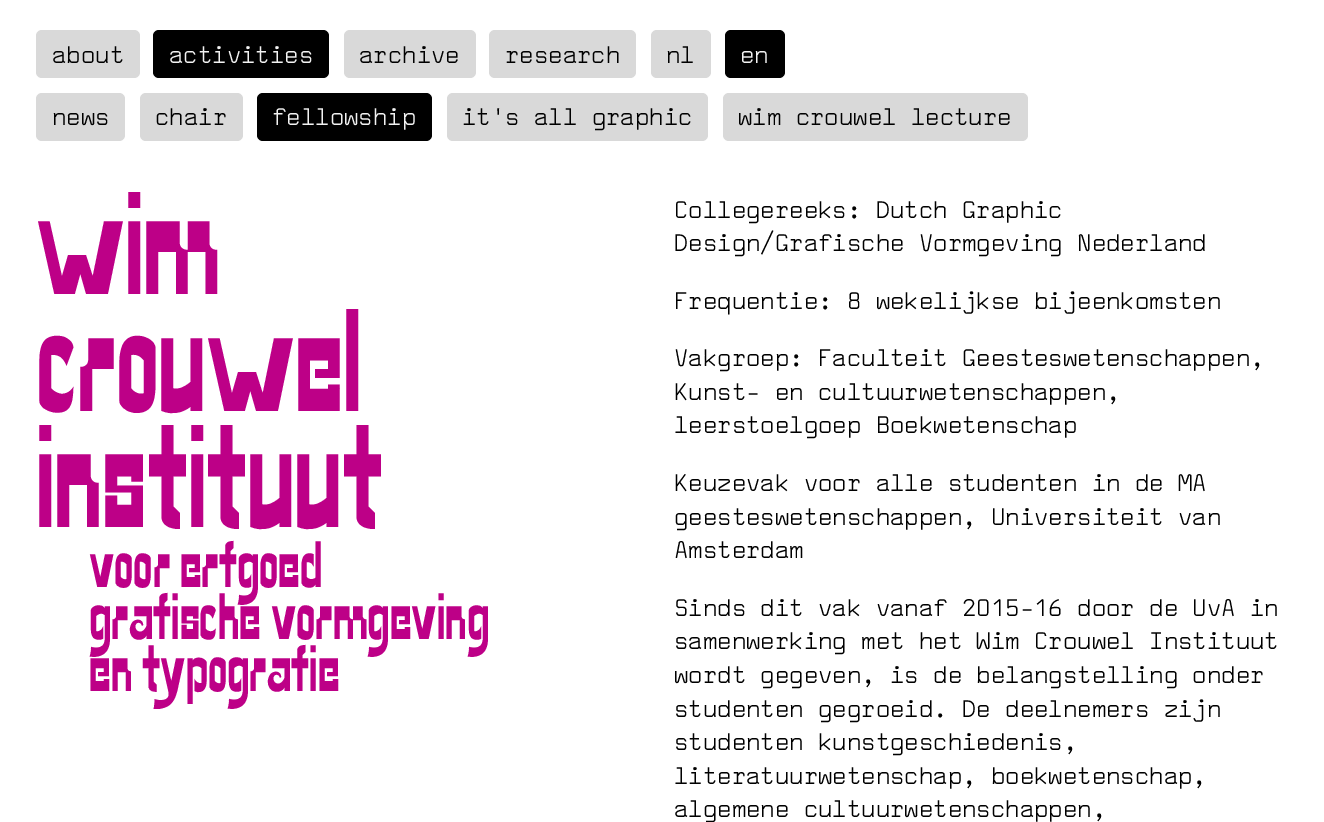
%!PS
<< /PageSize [1324 822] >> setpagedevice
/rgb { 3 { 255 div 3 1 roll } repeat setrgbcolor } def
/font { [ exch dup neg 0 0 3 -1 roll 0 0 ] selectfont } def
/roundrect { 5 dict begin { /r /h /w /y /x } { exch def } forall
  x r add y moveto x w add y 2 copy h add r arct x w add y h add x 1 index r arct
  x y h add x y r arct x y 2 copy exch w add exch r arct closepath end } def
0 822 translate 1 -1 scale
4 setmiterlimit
255 255 255 rgb
0 0 1324 822 rectfill
217 217 217 rgb
36 30 104 48 6 roundrect fill
0 0 0 rgb
153 30 176 48 6 roundrect fill
217 217 217 rgb
344 30 132 48 6 roundrect fill
489 30 147 48 6 roundrect fill
651 30 60 48 6 roundrect fill
0 0 0 rgb
725 30 60 48 6 roundrect fill
217 217 217 rgb
36 93 89 48 6 roundrect fill
140 93 103 48 6 roundrect fill
0 0 0 rgb
257 93 175 48 6 roundrect fill
217 217 217 rgb
447 93 261 48 6 roundrect fill
723 93 305 48 6 roundrect fill
/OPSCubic-Regular 24 font
0 0 0 rgb
52 63 moveto (about) show
242 242 242 rgb
169 63 moveto (activities) show
0 0 0 rgb
[
  [(archive) 359 63]
  [(research) 505 63]
  [(nl) 666 63]
] { aload pop moveto show } forall
242 242 242 rgb
740 63 moveto (en) show
0 0 0 rgb
52 125 moveto (news) show
155 125 moveto (chair) show
242 242 242 rgb
272 125 moveto (fellowship) show
0 0 0 rgb
462 125 moveto (it's all graphic) show
738 125 moveto (wim crouwel lecture) show
/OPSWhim-Bold 146 font
189 0 135 rgb
[
  [(wim) 36 294]
  [(crouwel) 36 411]
  [(instituut) 36 527]
] { aload pop moveto show } forall
/OPSWhim-Bold 65.5 font
[
  [(voor erfgoed) 89 587]
  [(grafische vormgeving) 89 639]
  [(en typografie) 89 691]
] { aload pop moveto show } forall
/OPSCubic-Regular 24 font
0 0 0 rgb
[
  [(Collegereeks: Dutch Graphic) 674 218]
  [(Design/Grafische Vormgeving Nederland) 674 251]
  [(Frequentie: 8 wekelijkse bijeenkomsten) 674 309]
  [(Vakgroep: Faculteit Geesteswetenschappen,) 674 366]
  [(Kunst- en cultuurwetenschappen,) 674 400]
  [(leerstoelgoep Boekwetenschap) 674 433]
  [(Keuzevak voor alle studenten in de MA) 674 491]
  [(geesteswetenschappen, Universiteit van) 674 525]
  [(Amsterdam) 674 558]
  [(Sinds dit vak vanaf 2015-16 door de UvA in) 674 616]
  [(samenwerking met het Wim Crouwel Instituut) 674 649]
  [(wordt gegeven, is de belangstelling onder) 674 683]
  [(studenten gegroeid. De deelnemers zijn) 674 717]
  [(studenten kunstgeschiedenis,) 674 750]
  [(literatuurwetenschap, boekwetenschap,) 674 784]
  [(algemene cultuurwetenschappen,) 674 817]
] { aload pop moveto show } forall
showpage
